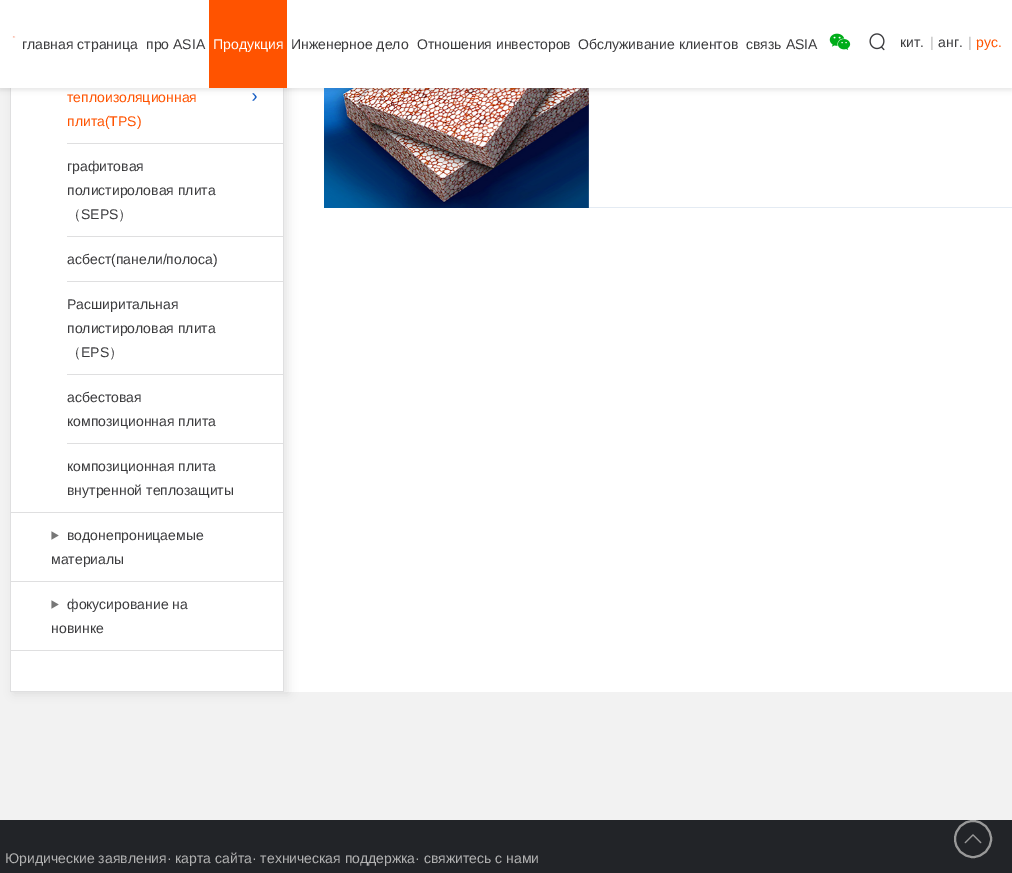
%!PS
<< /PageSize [1012 873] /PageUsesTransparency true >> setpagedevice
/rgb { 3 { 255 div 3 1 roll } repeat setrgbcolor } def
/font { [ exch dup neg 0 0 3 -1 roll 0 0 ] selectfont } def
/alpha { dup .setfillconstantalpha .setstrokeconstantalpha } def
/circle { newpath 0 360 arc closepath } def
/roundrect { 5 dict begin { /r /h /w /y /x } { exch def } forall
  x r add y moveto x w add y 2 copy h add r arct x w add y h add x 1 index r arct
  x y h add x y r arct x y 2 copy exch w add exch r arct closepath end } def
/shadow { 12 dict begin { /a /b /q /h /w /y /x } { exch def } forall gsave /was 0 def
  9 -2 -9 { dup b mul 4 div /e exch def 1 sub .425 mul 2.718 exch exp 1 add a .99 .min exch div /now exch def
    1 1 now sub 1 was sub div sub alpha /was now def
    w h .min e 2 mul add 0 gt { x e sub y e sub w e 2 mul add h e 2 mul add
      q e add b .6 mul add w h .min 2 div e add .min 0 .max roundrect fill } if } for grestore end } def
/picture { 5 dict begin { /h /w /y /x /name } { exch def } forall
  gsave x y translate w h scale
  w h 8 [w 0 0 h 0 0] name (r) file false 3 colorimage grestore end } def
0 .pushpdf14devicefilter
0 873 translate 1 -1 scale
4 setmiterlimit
242 242 242 rgb
0 0 1012 873 rectfill
255 255 255 rgb
11 88 1001 604 rectfill
gsave
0 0 moveto 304 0 lineto 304 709 lineto 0 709 lineto closepath 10 -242 moveto 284 -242 lineto 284 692 lineto 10 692 lineto closepath eoclip newpath
0 0 0 rgb
14 -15 274 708 0 5 0.1 shadow
grestore
[
  [283 88 1 604 223 223 224]
  [10 691 274 1 223 223 224]
  [10 88 1 604 223 223 224]
] { aload pop rgb rectfill } forall
(img/4.rgb) 252 93 5 8 picture
(img/6.rgb) 324 88 265 120 picture
0 0 0 rgb
0 2 1012 88 0 2.5 0.1 shadow
255 255 255 rgb
0 0 1012 88 rectfill
(img/1.rgb) 12 36 4 2 picture
255 83 0 rgb
209 0 78 88 rectfill
(img/2.rgb) 829 33 22 17 picture
(img/3.rgb) 869 33 16 18 picture
[
  [11 512 272 1 223 223 224]
  [67 143 216 1 223 223 224]
  [67 236 216 1 223 223 224]
  [67 281 216 1 223 223 224]
  [67 374 216 1 223 223 224]
  [67 443 216 1 223 223 224]
  [11 581 272 1 223 223 224]
] { aload pop rgb rectfill } forall
(img/5.rgb) 51 531 8 9 picture
11 650 272 1 rectfill
(img/5.rgb) 51 600 8 9 picture
228 235 243 rgb
589 207 423 1 rectfill
34 36 40 rgb
0 820 1012 53 rectfill
153 153 153 rgb
2 setlinewidth
973 839 18 circle stroke
(img/7.rgb) 964 834 18 10 picture
/LiberationSans-Regular 14 font
59 59 61 rgb
22 49 moveto (главная страница) show
146 49 moveto (про ASIA) show
255 255 255 rgb
213 49 moveto (Продукция) show
59 59 61 rgb
[
  [(Инженерное дело) 291 49]
  [(Отношения инвесторов) 417 49]
  [(Обслуживание клиентов) 578 49]
  [(связь ASIA) 746 49]
  [(кит.) 900 47]
] { aload pop moveto show } forall
189 189 189 rgb
930 47 moveto (|) show
59 59 61 rgb
938 47 moveto (анг.) show
189 189 189 rgb
968 47 moveto (|) show
255 83 0 rgb
[
  [(рус.) 976 47]
  [(теплоизоляционная) 67 102]
  [(плита\(TPS\)) 67 126]
] { aload pop moveto show } forall
59 59 61 rgb
67 171 moveto (графитовая) show
67 195 moveto (полистироловая плита) show
/WenQuanYiZenHei-Medium 14 font
67 219 moveto (（) show
/LiberationSans-Regular 14 font
81 219 moveto (SEPS) show
/WenQuanYiZenHei-Medium 14 font
118 219 moveto (）) show
/LiberationSans-Regular 14 font
[
  [(асбест\(панели/полоса\)) 67 264]
  [(Расширитальная) 67 309]
  [(полистироловая плита) 67 333]
] { aload pop moveto show } forall
/WenQuanYiZenHei-Medium 14 font
67 357 moveto (（) show
/LiberationSans-Regular 14 font
81 357 moveto (EPS) show
/WenQuanYiZenHei-Medium 14 font
109 357 moveto (）) show
/LiberationSans-Regular 14 font
[
  [(асбестовая) 67 402]
  [(композиционная плита) 67 426]
  [(композиционная плита) 67 471]
  [(внутренной теплозащиты) 67 495]
  [(водонепроницаемые) 67 540]
  [(материалы) 51 564]
  [(фокусирование на) 67 609]
  [(новинке) 51 633]
] { aload pop moveto show } forall
178 178 178 rgb
5 863 moveto (Юридические заявления· карта сайта· техническая поддержка· свяжитесь с нами) show
.poppdf14devicefilter showpage
